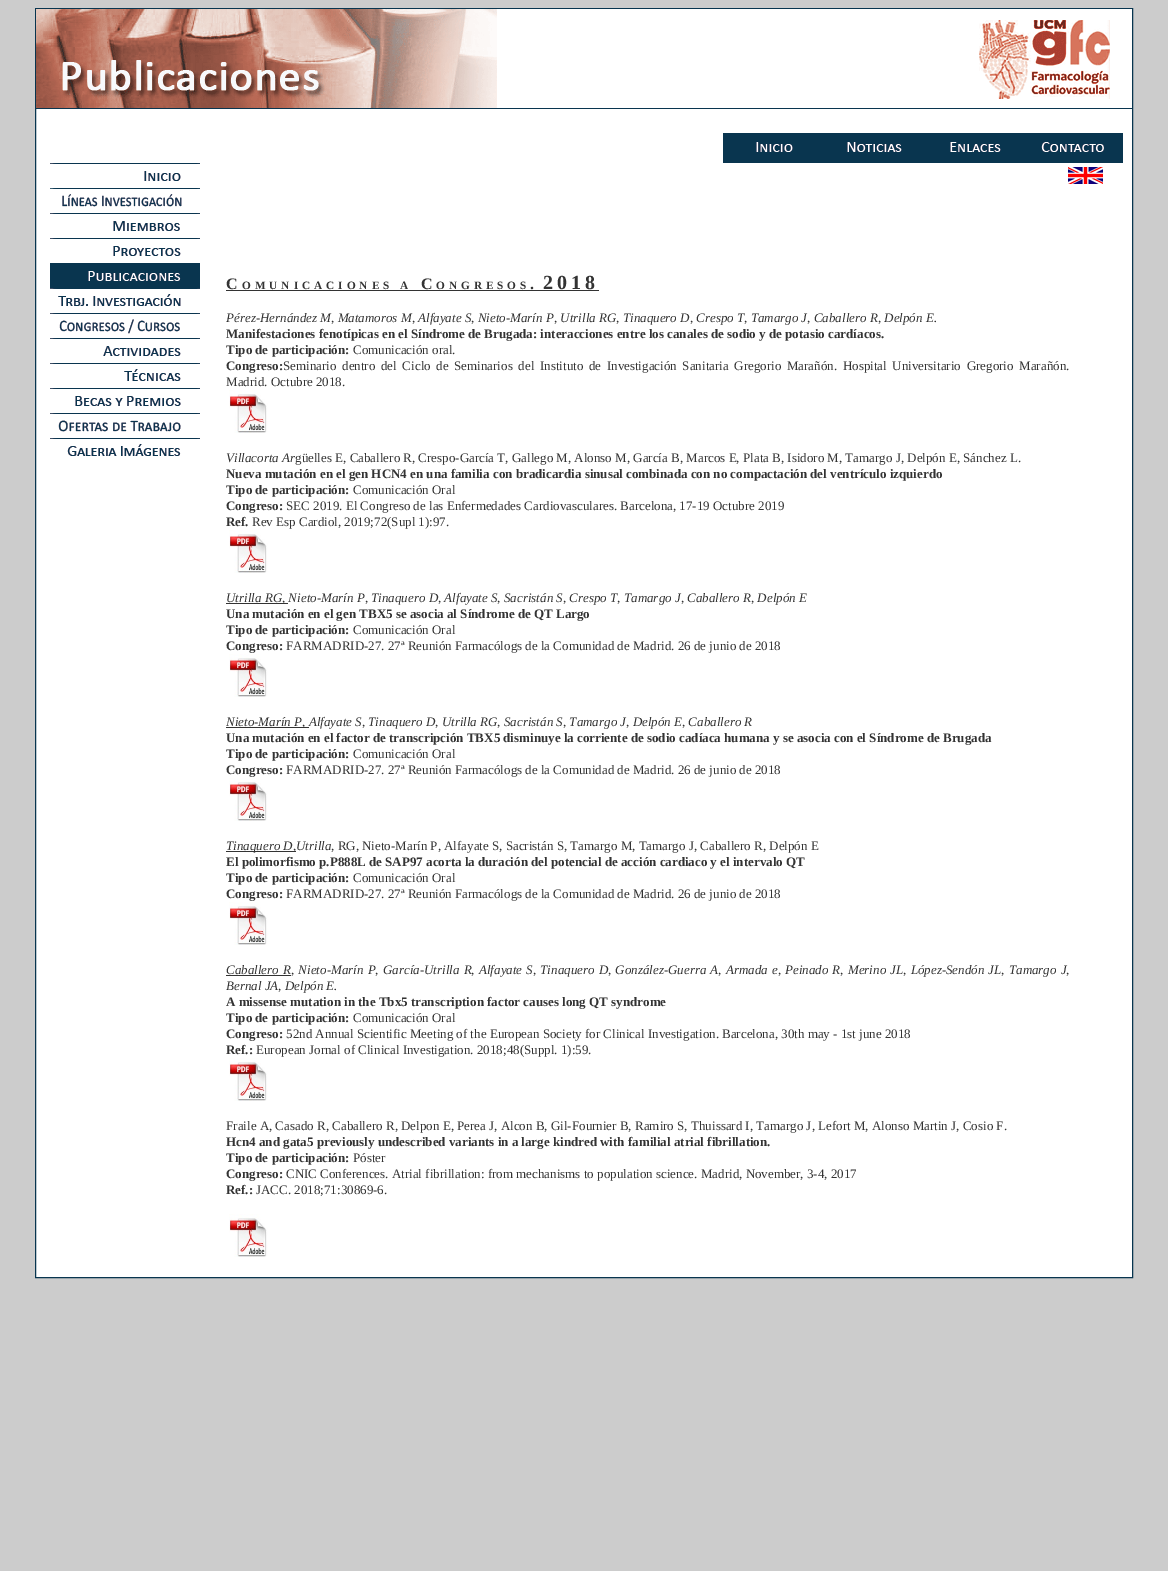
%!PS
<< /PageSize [1168 1571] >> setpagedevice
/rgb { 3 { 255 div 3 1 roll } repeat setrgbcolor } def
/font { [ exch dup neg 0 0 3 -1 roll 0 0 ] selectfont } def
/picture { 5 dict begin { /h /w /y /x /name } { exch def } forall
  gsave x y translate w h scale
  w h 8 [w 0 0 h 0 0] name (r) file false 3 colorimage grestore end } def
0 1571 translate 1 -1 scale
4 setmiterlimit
204 204 204 rgb
0 0 1168 1571 rectfill
255 255 255 rgb
36 109 1096 1168 rectfill
8 53 79 rgb
35.5 8.5 1097 1269 rectstroke
(img/1.rgb) 36 9 1096 100 picture
(img/2.rgb) 723 133 100 30 picture
(img/3.rgb) 823 133 100 30 picture
(img/4.rgb) 923 133 100 30 picture
(img/5.rgb) 1023 133 100 30 picture
(img/6.rgb) 50 163 150 18 picture
(img/7.rgb) 50 188 150 19 picture
(img/8.rgb) 50 213 150 18 picture
(img/9.rgb) 50 238 150 18 picture
(img/10.rgb) 50 263 150 25 picture
(img/11.rgb) 50 288 150 18 picture
(img/12.rgb) 50 313 150 21 picture
(img/13.rgb) 50 338 150 18 picture
(img/14.rgb) 50 363 150 18 picture
(img/15.rgb) 50 388 150 18 picture
(img/16.rgb) 50 413 150 19 picture
(img/17.rgb) 50 438 150 18 picture
(img/18.rgb) 1068 167 35 17 picture
51 51 51 rgb
226 290 373 1 rectfill
(img/19.rgb) 229 390 39 43 picture
(img/19.rgb) 229 530 39 43 picture
226 603 62 1 rectfill
(img/19.rgb) 229 654 39 43 picture
226 727 83 1 rectfill
(img/20.rgb) 229 778 39 43 picture
226 851 70 1 rectfill
(img/20.rgb) 229 902 39 43 picture
226 975 65 1 rectfill
(img/19.rgb) 229 1058 39 43 picture
(img/19.rgb) 229 1214 39 43 picture
/LiberationSerif-Bold 16 font
226 289 moveto 4 0 (C) ashow
/LiberationSerif-Bold 11.25 font
242 289 moveto 4 0 (OMUNICACIONES) ashow
400 289 moveto 4 0 (A) ashow
/LiberationSerif-Bold 16 font
421 289 moveto 4 0 (C) ashow
/LiberationSerif-Bold 11.25 font
436 289 moveto 4 0 (ONGRESOS) ashow
/LiberationSerif-Bold 16 font
530 289 moveto 4 0 (.) ashow
/LiberationSerif-Bold 20 font
543 289 moveto 4 0 (2018) ashow
/LiberationSerif-Italic 13 font
226 322 moveto (Pérez-Hernández M, Matamoros M, Alfayate S, Nieto-Marín P, Utrilla RG, Tinaquero D, Crespo T, Tamargo J, Caballero R, Delpón E.) show
/LiberationSerif-Bold 13 font
226 338 moveto (Manifestaciones fenotípicas en el Síndrome de Brugada: interacciones entre los canales de sodio y de potasio cardíacos.) show
226 354 moveto (Tipo de participación:) show
/LiberationSerif-Regular 13 font
353 354 moveto (Comunicación oral.) show
/LiberationSerif-Bold 13 font
226 370 moveto (Congreso:) show
/LiberationSerif-Regular 13 font
283 370 moveto 2.4 0 32 (Seminario dentro del Ciclo de Seminarios del Instituto de Investigación Sanitaria Gregorio Marañón. Hospital Universitario Gregorio Marañón.) widthshow
226 386 moveto (Madrid. Octubre 2018.) show
/LiberationSerif-Italic 13 font
226 462 moveto (Villacorta Ar) show
/LiberationSerif-Regular 13 font
295 462 moveto (güelles E, Caballero R, Crespo-García T, Gallego M, Alonso M, García B, Marcos E, Plata B, Isidoro M, Tamargo J, Delpón E, Sánchez L.) show
/LiberationSerif-Bold 13 font
226 478 moveto (Nueva mutación en el gen HCN4 en una familia con bradicardia sinusal combinada con no compactación del ventrículo izquierdo) show
226 494 moveto (Tipo de participación:) show
/LiberationSerif-Regular 13 font
353 494 moveto (Comunicación Oral) show
/LiberationSerif-Bold 13 font
226 510 moveto (Congreso:) show
/LiberationSerif-Regular 13 font
286 510 moveto (SEC 2019. El Congreso de las Enfermedades Cardiovasculares. Barcelona, 17-19 Octubre 2019) show
/LiberationSerif-Bold 13 font
226 526 moveto (Ref.) show
/LiberationSerif-Regular 13 font
252 526 moveto (Rev Esp Cardiol, 2019;72\(Supl 1\):97.) show
/LiberationSerif-Italic 13 font
226 602 moveto (Utrilla RG, Nieto-Marín P, Tinaquero D, Alfayate S, Sacristán S, Crespo T, Tamargo J, Caballero R, Delpón E) show
/LiberationSerif-Bold 13 font
226 618 moveto (Una mutación en el gen TBX5 se asocia al Síndrome de QT Largo) show
226 634 moveto (Tipo de participación:) show
/LiberationSerif-Regular 13 font
353 634 moveto (Comunicación Oral) show
/LiberationSerif-Bold 13 font
226 650 moveto (Congreso:) show
/LiberationSerif-Regular 13 font
286 650 moveto (FARMADRID-27. 27ª Reunión Farmacólogs de la Comunidad de Madrid. 26 de junio de 2018) show
/LiberationSerif-Italic 13 font
226 726 moveto (Nieto-Marín P, Alfayate S, Tinaquero D, Utrilla RG, Sacristán S, Tamargo J, Delpón E, Caballero R) show
/LiberationSerif-Bold 13 font
226 742 moveto (Una mutación en el factor de transcripción TBX5 disminuye la corriente de sodio cadíaca humana y se asocia con el Síndrome de Brugada) show
226 758 moveto (Tipo de participación:) show
/LiberationSerif-Regular 13 font
353 758 moveto (Comunicación Oral) show
/LiberationSerif-Bold 13 font
226 774 moveto (Congreso:) show
/LiberationSerif-Regular 13 font
286 774 moveto (FARMADRID-27. 27ª Reunión Farmacólogs de la Comunidad de Madrid. 26 de junio de 2018) show
/LiberationSerif-Italic 13 font
226 850 moveto (Tinaquero D,Utrilla) show
/LiberationSerif-Regular 13 font
331 850 moveto (, RG, Nieto-Marín P, Alfayate S, Sacristán S, Tamargo M, Tamargo J, Caballero R, Delpón E) show
/LiberationSerif-Bold 13 font
226 866 moveto (El polimorfismo p.P888L de SAP97 acorta la duración del potencial de acción cardiaco y el intervalo QT) show
226 882 moveto (Tipo de participación:) show
/LiberationSerif-Regular 13 font
353 882 moveto (Comunicación Oral) show
/LiberationSerif-Bold 13 font
226 898 moveto (Congreso:) show
/LiberationSerif-Regular 13 font
286 898 moveto (FARMADRID-27. 27ª Reunión Farmacólogs de la Comunidad de Madrid. 26 de junio de 2018) show
/LiberationSerif-Italic 13 font
226 974 moveto 1 0 32 (Caballero R) widthshow
291 974 moveto 0.9 0 32 (, Nieto-Marín P, García-Utrilla R, Alfayate S, Tinaquero D, González-Guerra A, Armada e, Peinado R, Merino JL, López-Sendón JL, Tamargo J,) widthshow
226 990 moveto (Bernal JA, Delpón E.) show
/LiberationSerif-Bold 13 font
226 1006 moveto (A missense mutation in the Tbx5 transcription factor causes long QT syndrome) show
226 1022 moveto (Tipo de participación:) show
/LiberationSerif-Regular 13 font
353 1022 moveto (Comunicación Oral) show
/LiberationSerif-Bold 13 font
226 1038 moveto (Congreso:) show
/LiberationSerif-Regular 13 font
286 1038 moveto (52nd Annual Scientific Meeting of the European Society for Clinical Investigation. Barcelona, 30th may - 1st june 2018) show
/LiberationSerif-Bold 13 font
226 1054 moveto (Ref.:) show
/LiberationSerif-Regular 13 font
256 1054 moveto (European Jornal of Clinical Investigation. 2018;48\(Suppl. 1\):59.) show
226 1130 moveto (Fraile A, Casado R, Caballero R, Delpon E, Perea J, Alcon B, Gil-Fournier B, Ramiro S, Thuissard I, Tamargo J, Lefort M, Alonso Martin J, Cosio F.) show
/LiberationSerif-Bold 13 font
226 1146 moveto (Hcn4 and gata5 previously undescribed variants in a large kindred with familial atrial fibrillation.) show
226 1162 moveto (Tipo de participación:) show
/LiberationSerif-Regular 13 font
353 1162 moveto (Póster) show
/LiberationSerif-Bold 13 font
226 1178 moveto (Congreso:) show
/LiberationSerif-Regular 13 font
286 1178 moveto (CNIC Conferences. Atrial fibrillation: from mechanisms to population science. Madrid, November, 3-4, 2017) show
/LiberationSerif-Bold 13 font
226 1194 moveto (Ref.:) show
/LiberationSerif-Regular 13 font
256 1194 moveto (JACC. 2018;71:30869-6.) show
showpage
